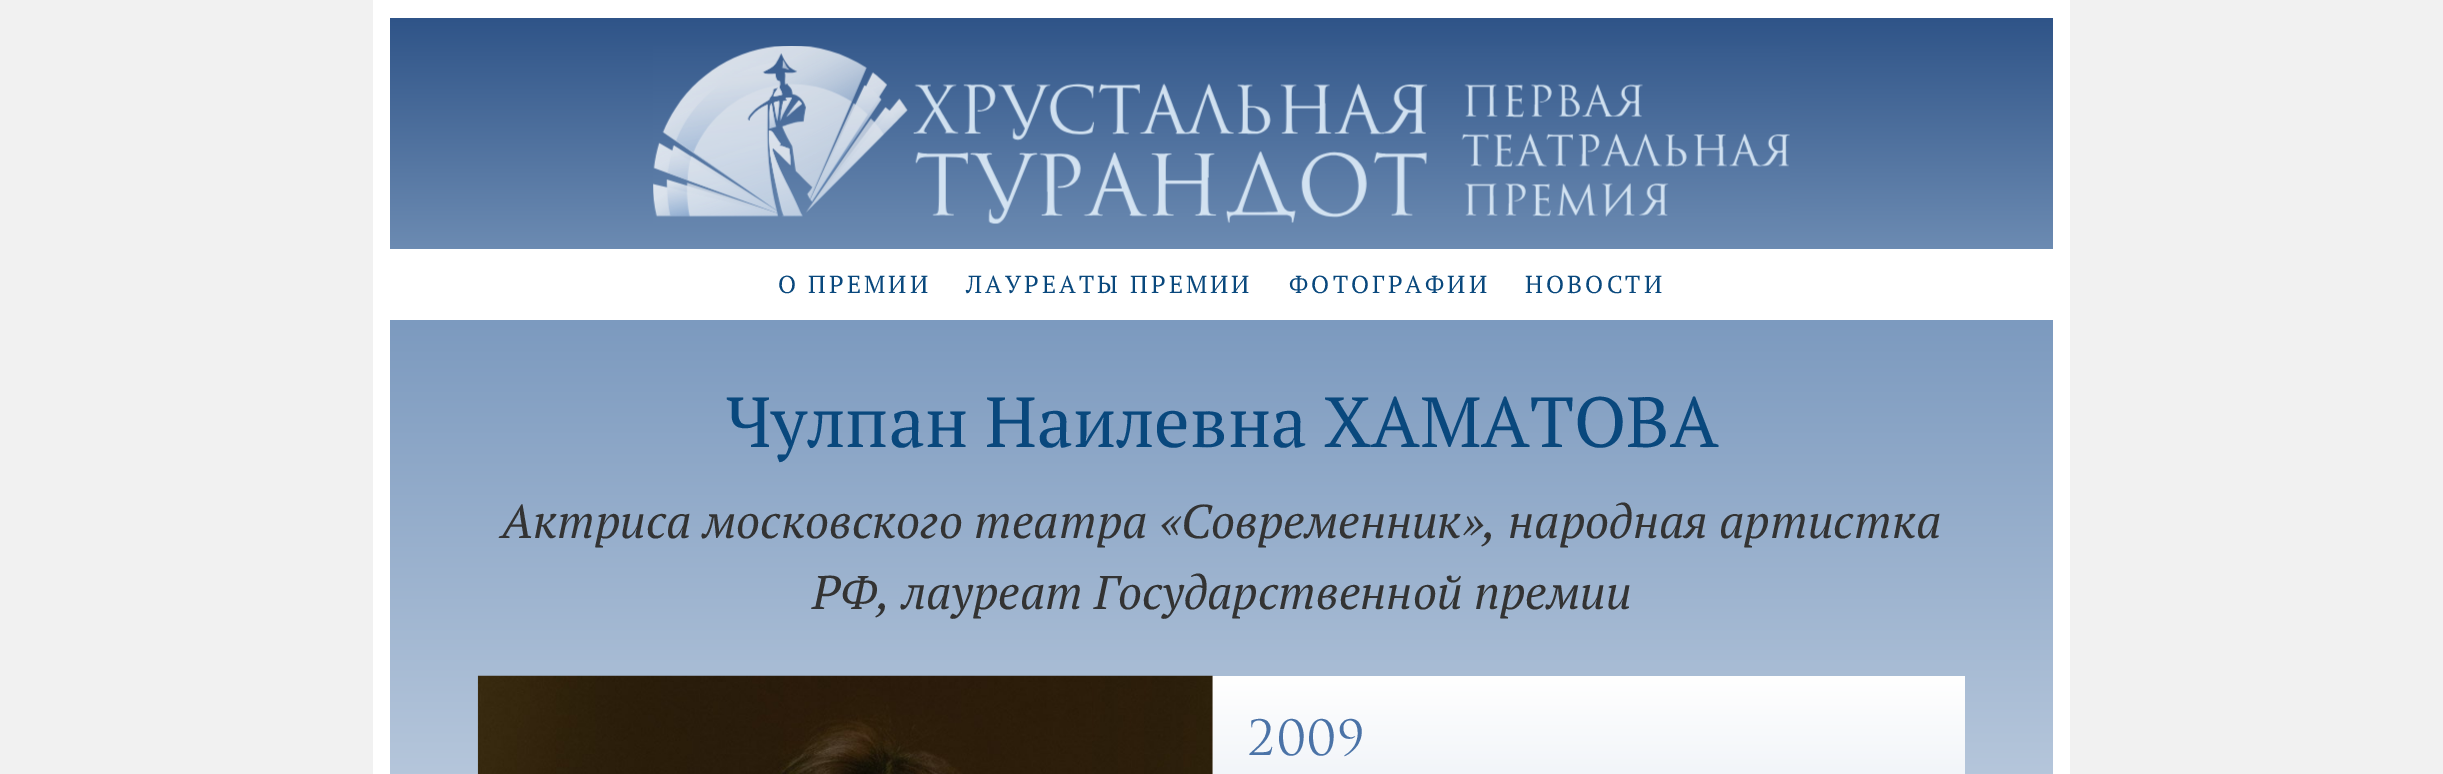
%!PS
<< /PageSize [2443 774] >> setpagedevice
/rgb { 3 { 255 div 3 1 roll } repeat setrgbcolor } def
/font { [ exch dup neg 0 0 3 -1 roll 0 0 ] selectfont } def
/picture { 5 dict begin { /h /w /y /x /name } { exch def } forall
  gsave x y translate w h scale
  w h 8 [w 0 0 h 0 0] name (r) file false 3 colorimage grestore end } def
0 774 translate 1 -1 scale
4 setmiterlimit
241 241 241 rgb
0 0 2443 774 rectfill
255 255 255 rgb
373 0 1697 320 rectfill
gsave 390 18 moveto 2053 18 lineto 2053 249 lineto 390 249 lineto closepath clip newpath
<< /ShadingType 2 /ColorSpace /DeviceRGB /Coords [1222 17 1222 249] /Extend [true true] /Function << /FunctionType 2 /Domain [0 1] /C0 [0.184 0.329 0.533] /C1 [0.424 0.545 0.698] /N 1 >> >> shfill grestore
(img/1.rgb) 653 46 1137 178 picture
373 320 1697 454 rectfill
gsave 390 320 moveto 2053 320 lineto 2053 774 lineto 390 774 lineto closepath clip newpath
<< /ShadingType 2 /ColorSpace /DeviceRGB /Coords [1222 320 1222 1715] /Extend [true true] /Function << /FunctionType 3 /Domain [0 1] /Functions [<< /FunctionType 2 /Domain [0 1] /C0 [0.486 0.604 0.749] /C1 [1 1 1] /N 1 >> << /FunctionType 2 /Domain [0 1] /C0 [1 1 1] /C1 [1 1 1] /N 1 >>] /Bounds [0.75] /Encode [0 1 0 1] >> >> shfill grestore
gsave 1213 676 moveto 1965 676 lineto 1965 774 lineto 1213 774 lineto closepath clip newpath
<< /ShadingType 2 /ColorSpace /DeviceRGB /Coords [1222 675 1222 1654] /Extend [true true] /Function << /FunctionType 2 /Domain [0 1] /C0 [1 1 1] /C1 [0.486 0.604 0.749] /N 1 >> >> shfill grestore
1212 676 1 98 rectfill
(img/2.rgb) 477 675 736 99 picture
/PTSerif-Regular 24.5 font
9 72 125 rgb
778 293 moveto 3.1 0 (О ПРЕМИИ) ashow
966 293 moveto 3.1 0 (ЛАУРЕАТЫ ПРЕМИИ) ashow
1289 293 moveto 3.1 0 (ФОТОГРАФИИ) ashow
1525 293 moveto 3.1 0 (НОВОСТИ) ashow
/PTSerif-Regular 70.9 font
726 447 moveto (Чулпан Наилевна ХАМАТОВА) show
/PTSerif-Italic 47.25 font
51 51 51 rgb
501 538 moveto (Актриса московского театра «Современник», народная артистка) show
812 609 moveto (РФ, лауреат Государственной премии) show
/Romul-Regular 47.25 font
75 115 167 rgb
1248 755 moveto (2009) show
showpage
